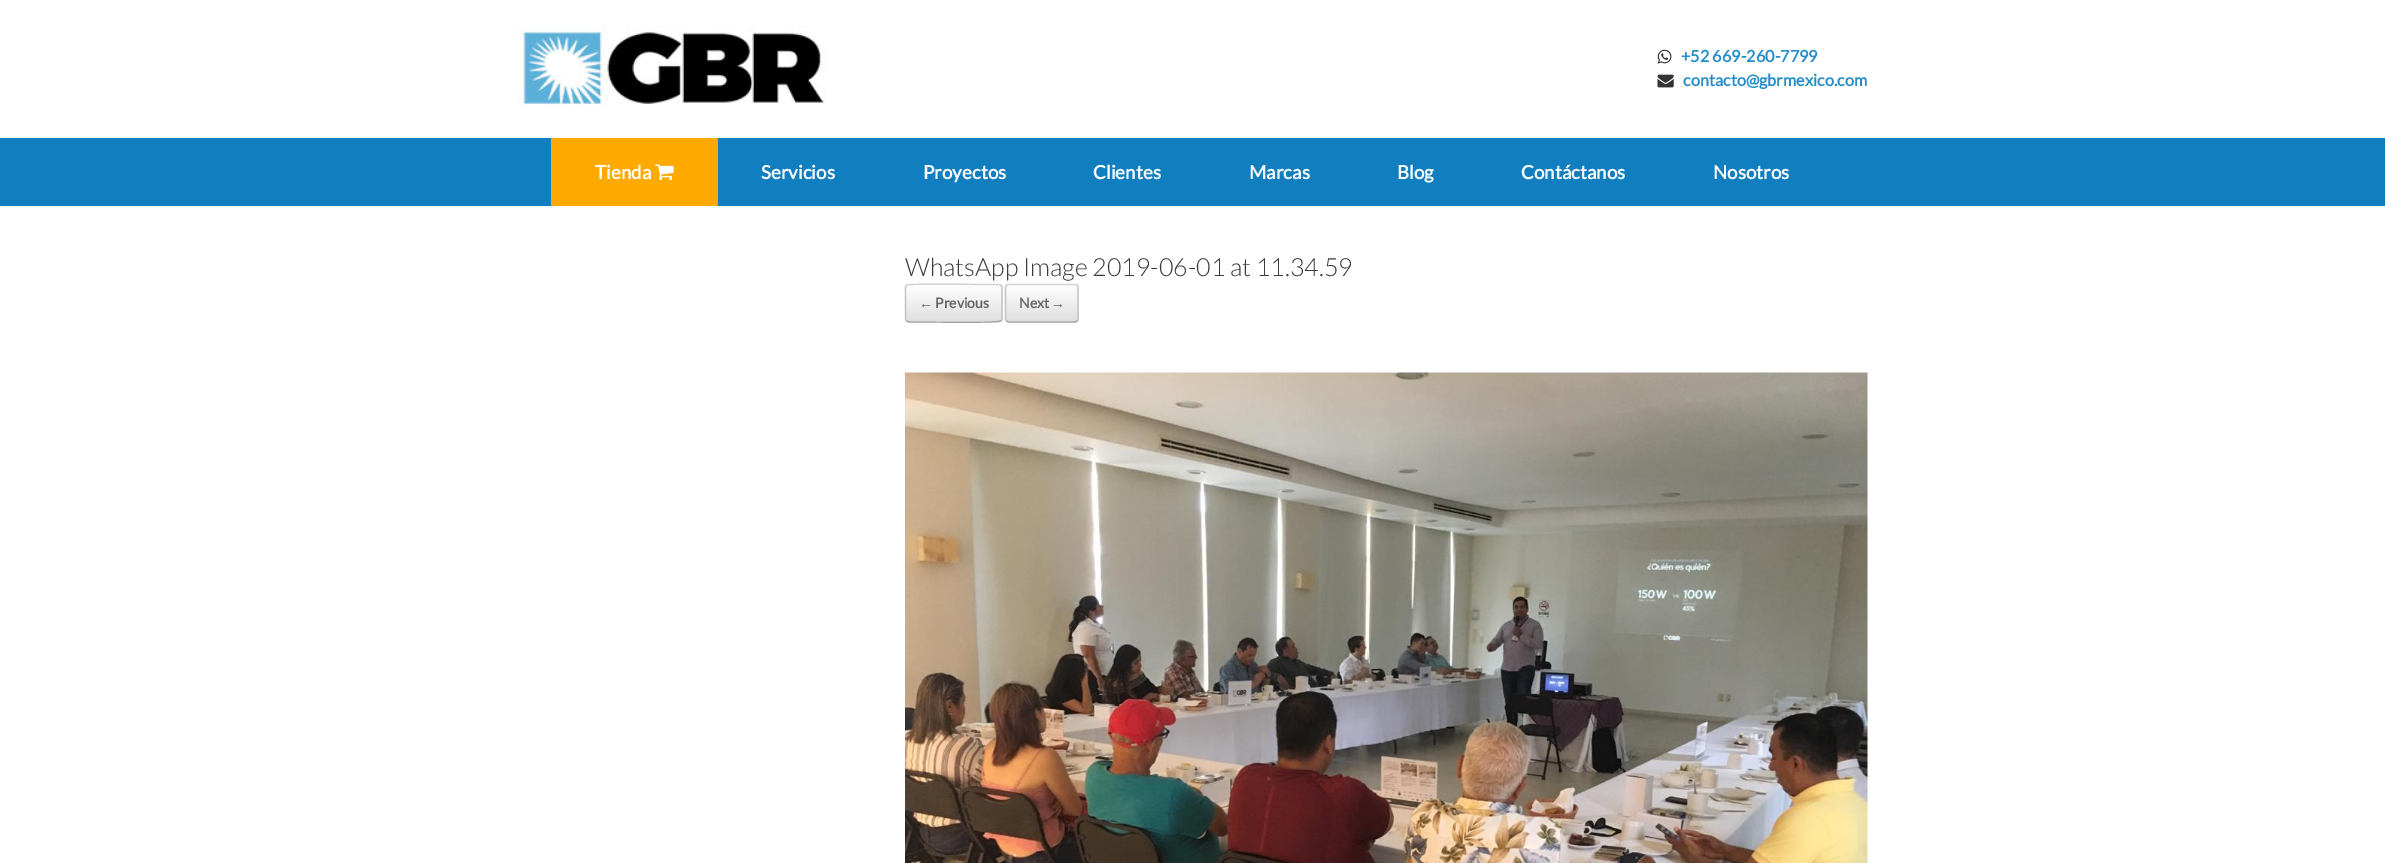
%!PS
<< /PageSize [2385 863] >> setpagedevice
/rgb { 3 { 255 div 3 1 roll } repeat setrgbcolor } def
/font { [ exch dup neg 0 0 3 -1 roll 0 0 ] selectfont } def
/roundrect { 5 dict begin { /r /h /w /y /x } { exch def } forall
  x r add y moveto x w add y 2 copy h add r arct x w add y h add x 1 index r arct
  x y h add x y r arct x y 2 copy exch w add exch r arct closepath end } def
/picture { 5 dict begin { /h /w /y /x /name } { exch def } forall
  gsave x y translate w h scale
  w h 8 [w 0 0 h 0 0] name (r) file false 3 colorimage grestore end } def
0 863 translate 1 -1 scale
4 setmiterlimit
255 255 255 rgb
0 0 2385 863 rectfill
(img/1.rgb) 517 25 310 80 picture
(img/2.rgb) 1657 49 15 15 picture
(img/3.rgb) 1657 74 17 14 picture
17 127 191 rgb
0 138 2385 68 rectfill
255 170 1 rgb
551 138 167 68 rectfill
(img/4.rgb) 655 164 19 17 picture
gsave
905 284 98 39 4 roundrect clip newpath
gsave 905 284 moveto 1003 284 lineto 1003 285 lineto 905 285 lineto closepath clip newpath
<< /ShadingType 2 /ColorSpace /DeviceRGB /Coords [906 285 906 249] /Extend [true true] /Function << /FunctionType 2 /Domain [0 1] /C0 [0.875 0.875 0.875] /C1 [1 1 1] /N 1 >> >> shfill grestore
gsave 905 285 moveto 1003 285 lineto 1003 321 lineto 905 321 lineto closepath clip newpath
<< /ShadingType 2 /ColorSpace /DeviceRGB /Coords [906 321 906 285] /Extend [true true] /Function << /FunctionType 2 /Domain [0 1] /C0 [0.875 0.875 0.875] /C1 [1 1 1] /N 1 >> >> shfill grestore
grestore
210 210 210 rgb
1.2 setlinewidth
906.5 285.5 moveto 907 285 lineto 909 283.5 975.5 284.5 984 284.5 curveto 999 284.5 lineto 1001 285.5 lineto stroke
195 195 195 rgb
1001 285.5 moveto 1001.5 286 1002 286.5 1002 287.5 curveto 1002 319 lineto 1002 319.5 1001.5 320.5 1001 321 curveto stroke
159 159 159 rgb
1001 321 moveto 1000.5 321 lineto 998.5 323 932 322 924 322 curveto 909 322 lineto 906.5 321 lineto stroke
195 195 195 rgb
906.5 321 moveto 906 320.5 905.5 319.5 905.5 319 curveto 905.5 287.5 lineto 905.5 286.5 906 286 906.5 285.5 curveto stroke
gsave
1005 284 74 39 4 roundrect clip newpath
gsave 1005 284 moveto 1079 284 lineto 1079 285 lineto 1005 285 lineto closepath clip newpath
<< /ShadingType 2 /ColorSpace /DeviceRGB /Coords [1006 285 1006 249] /Extend [true true] /Function << /FunctionType 2 /Domain [0 1] /C0 [0.875 0.875 0.875] /C1 [1 1 1] /N 1 >> >> shfill grestore
gsave 1005 285 moveto 1079 285 lineto 1079 321 lineto 1005 321 lineto closepath clip newpath
<< /ShadingType 2 /ColorSpace /DeviceRGB /Coords [1006 321 1006 285] /Extend [true true] /Function << /FunctionType 2 /Domain [0 1] /C0 [0.875 0.875 0.875] /C1 [1 1 1] /N 1 >> >> shfill grestore
grestore
210 210 210 rgb
1006.5 285.5 moveto 1008.5 284.5 lineto 1075.5 284.5 lineto 1077 285.5 lineto stroke
195 195 195 rgb
1077 285.5 moveto 1078 286 1078 286.5 1078 287.5 curveto 1078 319 lineto 1078 319.5 1078 320.5 1077 321 curveto stroke
159 159 159 rgb
1077 321 moveto 1075.5 322 lineto 1008.5 322 lineto 1006.5 321 lineto stroke
195 195 195 rgb
1006.5 321 moveto 1006 320.5 1005.5 319.5 1005.5 319 curveto 1005.5 287.5 lineto 1005.5 286.5 1006 286 1006.5 285.5 curveto stroke
(img/5.rgb) 905 372 963 491 picture
/Lato-Bold 16.25 font
36 140 200 rgb
1681 62 moveto (+52 669-260-7799) show
1683 86 moveto (contacto@gbrmexico.com) show
/Lato-Bold 18.75 font
255 255 255 rgb
[
  [(Tienda) 595 179]
  [(Servicios) 761 179]
  [(Proyectos) 923 179]
  [(Clientes) 1093 179]
  [(Marcas) 1249 179]
  [(Blog) 1397 179]
  [(Contáctanos) 1521 179]
  [(Nosotros) 1713 179]
] { aload pop moveto show } forall
/Lato-Light 25 font
59 59 59 rgb
905 276 moveto (WhatsApp Image 2019-06-01 at 11.34.59) show
/LiberationSerif-Bold 14 font
100 100 100 rgb
919 308 moveto (←) show
/Lato-Bold 14 font
935 308 moveto (Previous) show
1019 308 moveto (Next) show
/LiberationSerif-Bold 14 font
1051 308 moveto (→) show
showpage
